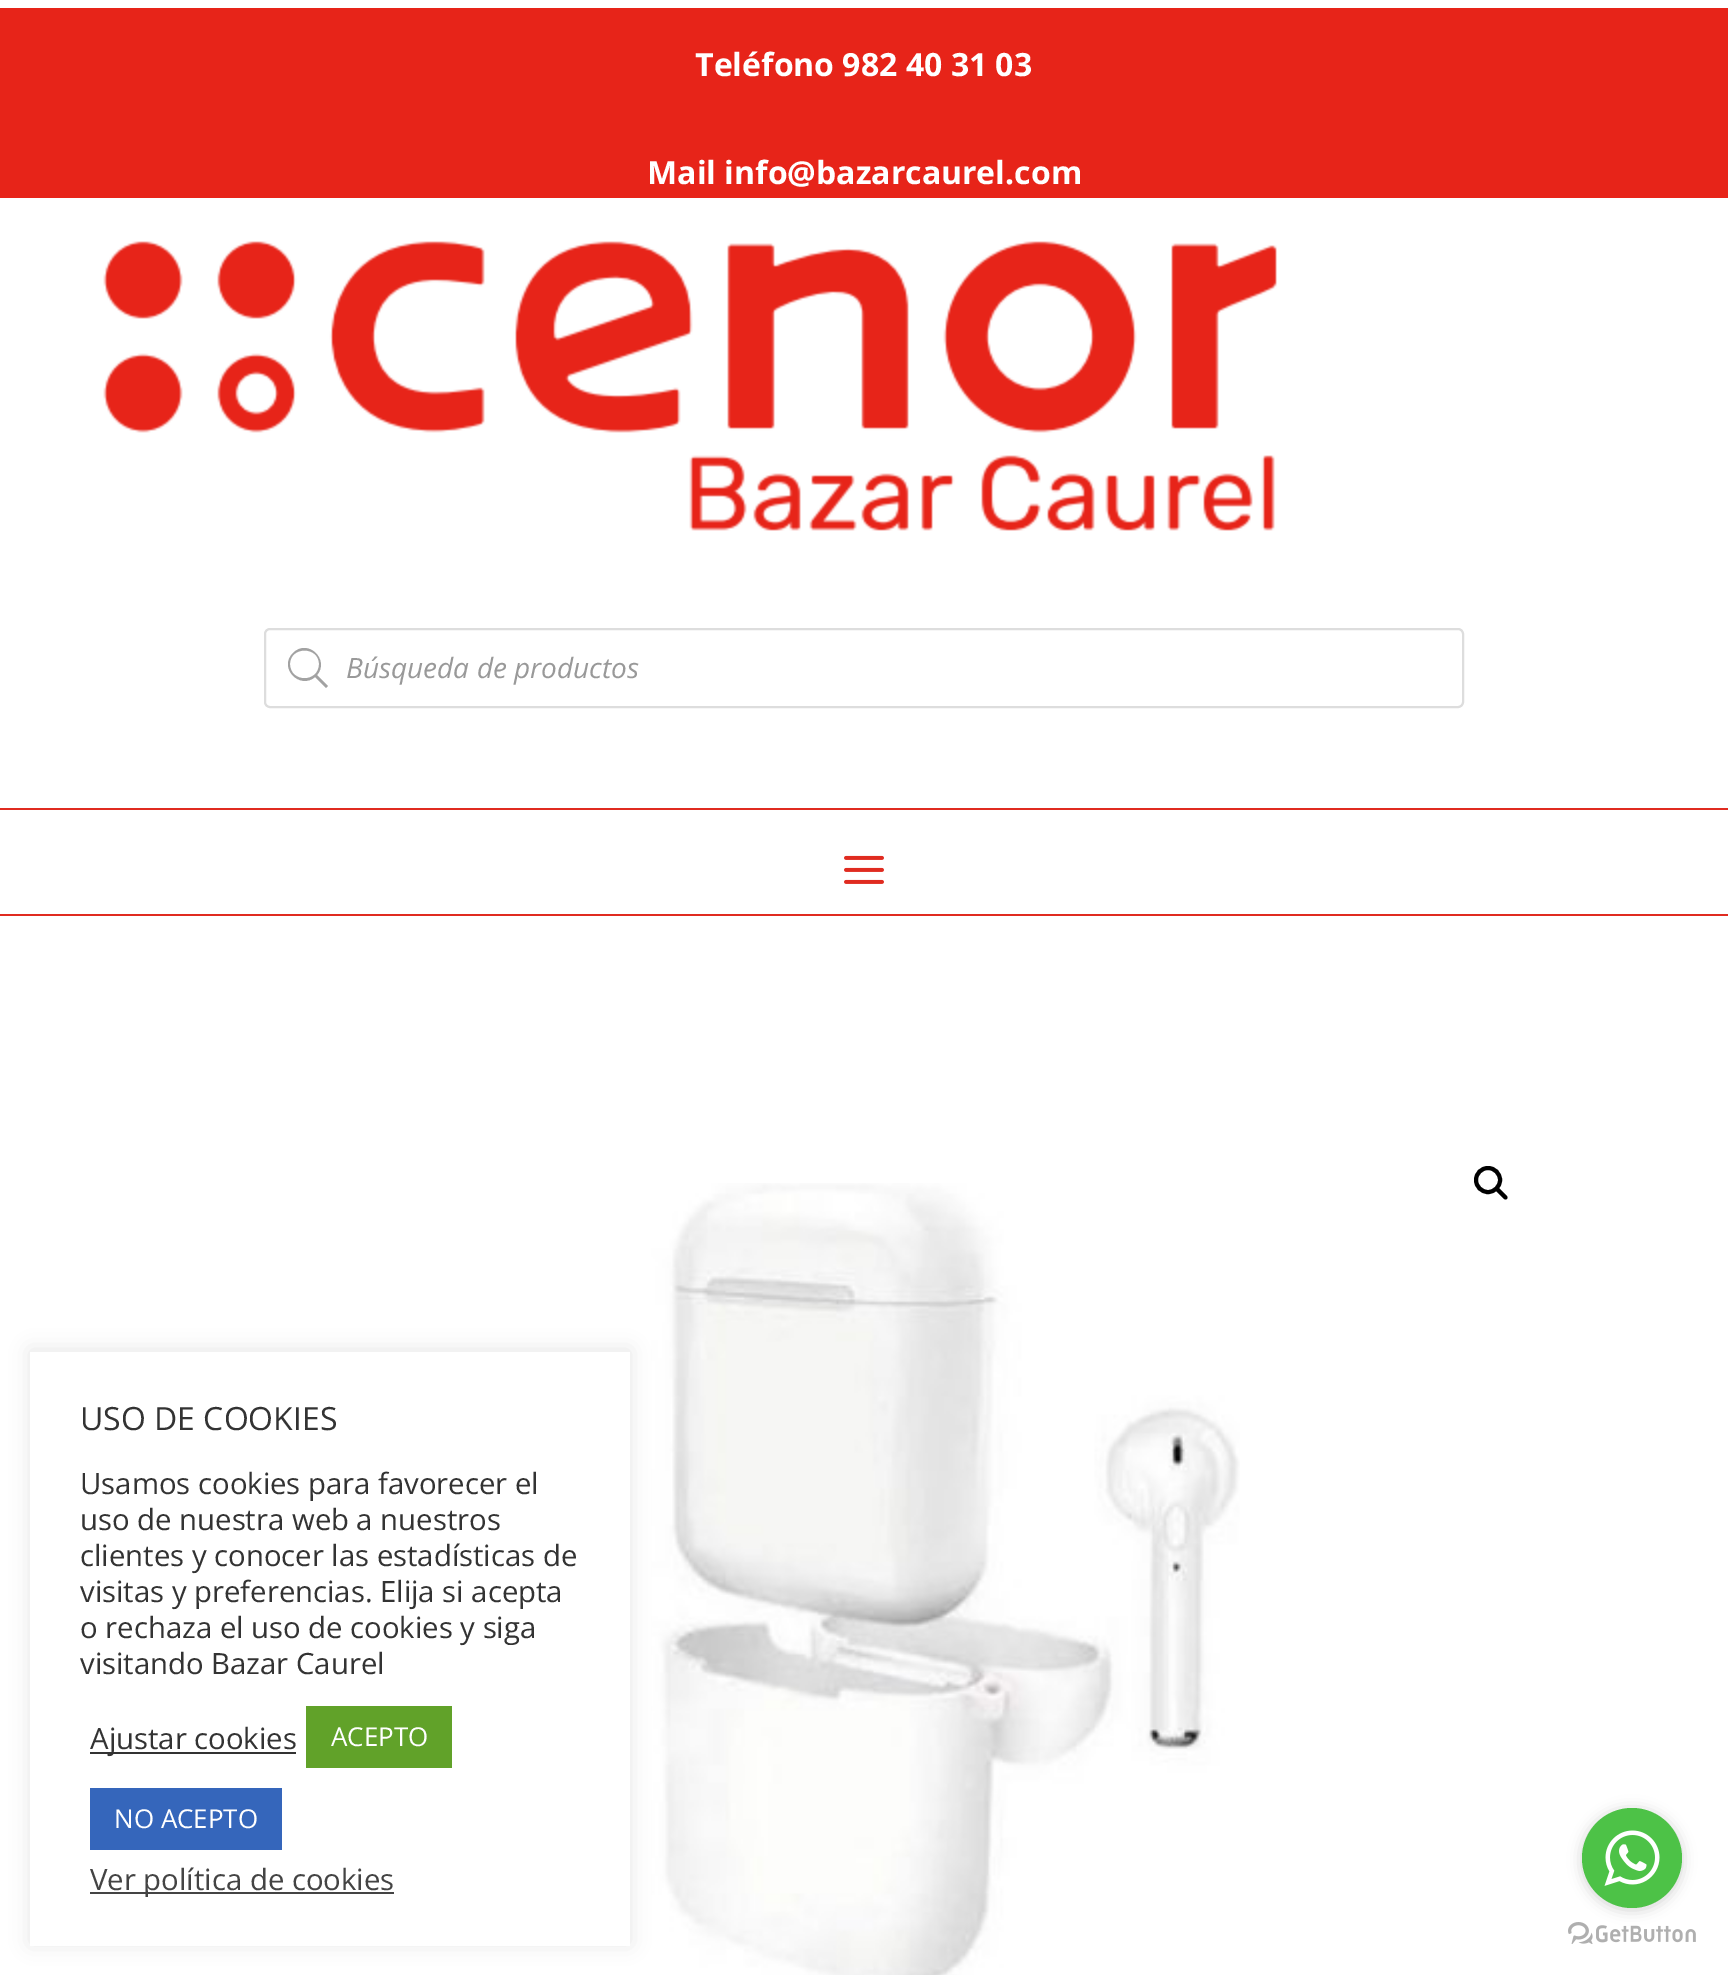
%!PS
<< /PageSize [1728 1975] /PageUsesTransparency true >> setpagedevice
/rgb { 3 { 255 div 3 1 roll } repeat setrgbcolor } def
/font { [ exch dup neg 0 0 3 -1 roll 0 0 ] selectfont } def
/alpha { dup .setfillconstantalpha .setstrokeconstantalpha } def
/circle { newpath 0 360 arc closepath } def
/roundrect { 5 dict begin { /r /h /w /y /x } { exch def } forall
  x r add y moveto x w add y 2 copy h add r arct x w add y h add x 1 index r arct
  x y h add x y r arct x y 2 copy exch w add exch r arct closepath end } def
/shadow { 12 dict begin { /a /b /q /h /w /y /x } { exch def } forall gsave /was 0 def
  9 -2 -9 { dup b mul 4 div /e exch def 1 sub .425 mul 2.718 exch exp 1 add a .99 .min exch div /now exch def
    1 1 now sub 1 was sub div sub alpha /was now def
    w h .min e 2 mul add 0 gt { x e sub y e sub w e 2 mul add h e 2 mul add
      q e add b .6 mul add w h .min 2 div e add .min 0 .max roundrect fill } if } for grestore end } def
/picture { 5 dict begin { /h /w /y /x /name } { exch def } forall
  gsave x y translate w h scale
  w h 8 [w 0 0 h 0 0] name (r) file false 3 colorimage grestore end } def
0 .pushpdf14devicefilter
0 1975 translate 1 -1 scale
4 setmiterlimit
255 255 255 rgb
0 0 1728 1975 rectfill
231 36 25 rgb
0 8 1728 190 rectfill
(img/1.rgb) 103 241 1174 290 picture
221 221 221 rgb
2 setlinewidth
265 629 1198 78 5 roundrect stroke
162 162 162 rgb
328 686 moveto 317 675 lineto 330 660 308 638 293 653 curveto 278 668 300 690 315 677 curveto 326 688 lineto closepath 290 664 moveto 290 646 319 646 319 664 curveto 319 683 290 683 290 664 curveto closepath fill
224 43 32 rgb
0 808 1728 2 rectfill
(img/2.rgb) 844 855 40 29 picture
0 914 1728 2 rectfill
(img/3.rgb) 457 1183 783 792 picture
0 0 0 rgb
4 setlinewidth
1488 1180 12 circle stroke
1495.5 1187.5 moveto 1496.5 1186.5 1497.5 1186.5 1498.5 1187.5 curveto 1507 1196 lineto 1507.5 1197 1507.5 1198 1507 1199 curveto 1506 1199.5 1505 1199.5 1504 1199 curveto 1495.5 1190.5 lineto 1494.5 1189.5 1494.5 1188.5 1495.5 1187.5 curveto closepath fill
172 171 171 rgb
30 1350 600 594 0 10 0.3 shadow
[
  [30 1352 600 594 255 255 255]
  [90 1752 206 2 51 51 51]
  [306 1706 146 62 97 162 41]
  [90 1788 192 62 53 102 187]
  [90 1892 304 2 68 68 68]
] { aload pop rgb rectfill } forall
(img/5.rgb) 1568 1922 128 22 picture
136 136 136 rgb
1582 1810 100 100 50 7 0.4 shadow
77 194 71 rgb
1632 1858 50 circle fill
(img/4.rgb) 1604 1830 56 56 picture
/OpenSans-Bold 32 font
255 255 255 rgb
695 76 moveto (Teléfono 982 40 31 03) show
647 184 moveto (Mail info@bazarcaurel.com) show
/OpenSans-Italic 28 font
153 153 153 rgb
346 678 moveto (Búsqueda de productos) show
/OpenSans-Regular 32 font
51 51 51 rgb
80 1430 moveto (USO DE COOKIES) show
/OpenSans-Regular 29.3 font
[
  [(Usamos cookies para favorecer el) 80 1494]
  [(uso de nuestra web a nuestros) 80 1530]
  [(clientes y conocer las estadísticas de) 80 1566]
  [(visitas y preferencias. Elija si acepta) 80 1602]
  [(o rechaza el uso de cookies y siga) 80 1638]
  [(visitando Bazar Caurel) 80 1674]
  [(Ajustar cookies) 90 1749]
] { aload pop moveto show } forall
/OpenSans-Regular 26 font
255 255 255 rgb
331 1746 moveto (ACEPTO) show
114 1828 moveto (NO ACEPTO) show
/OpenSans-Regular 29.3 font
68 68 68 rgb
90 1890 moveto (Ver política de cookies) show
.poppdf14devicefilter showpage
